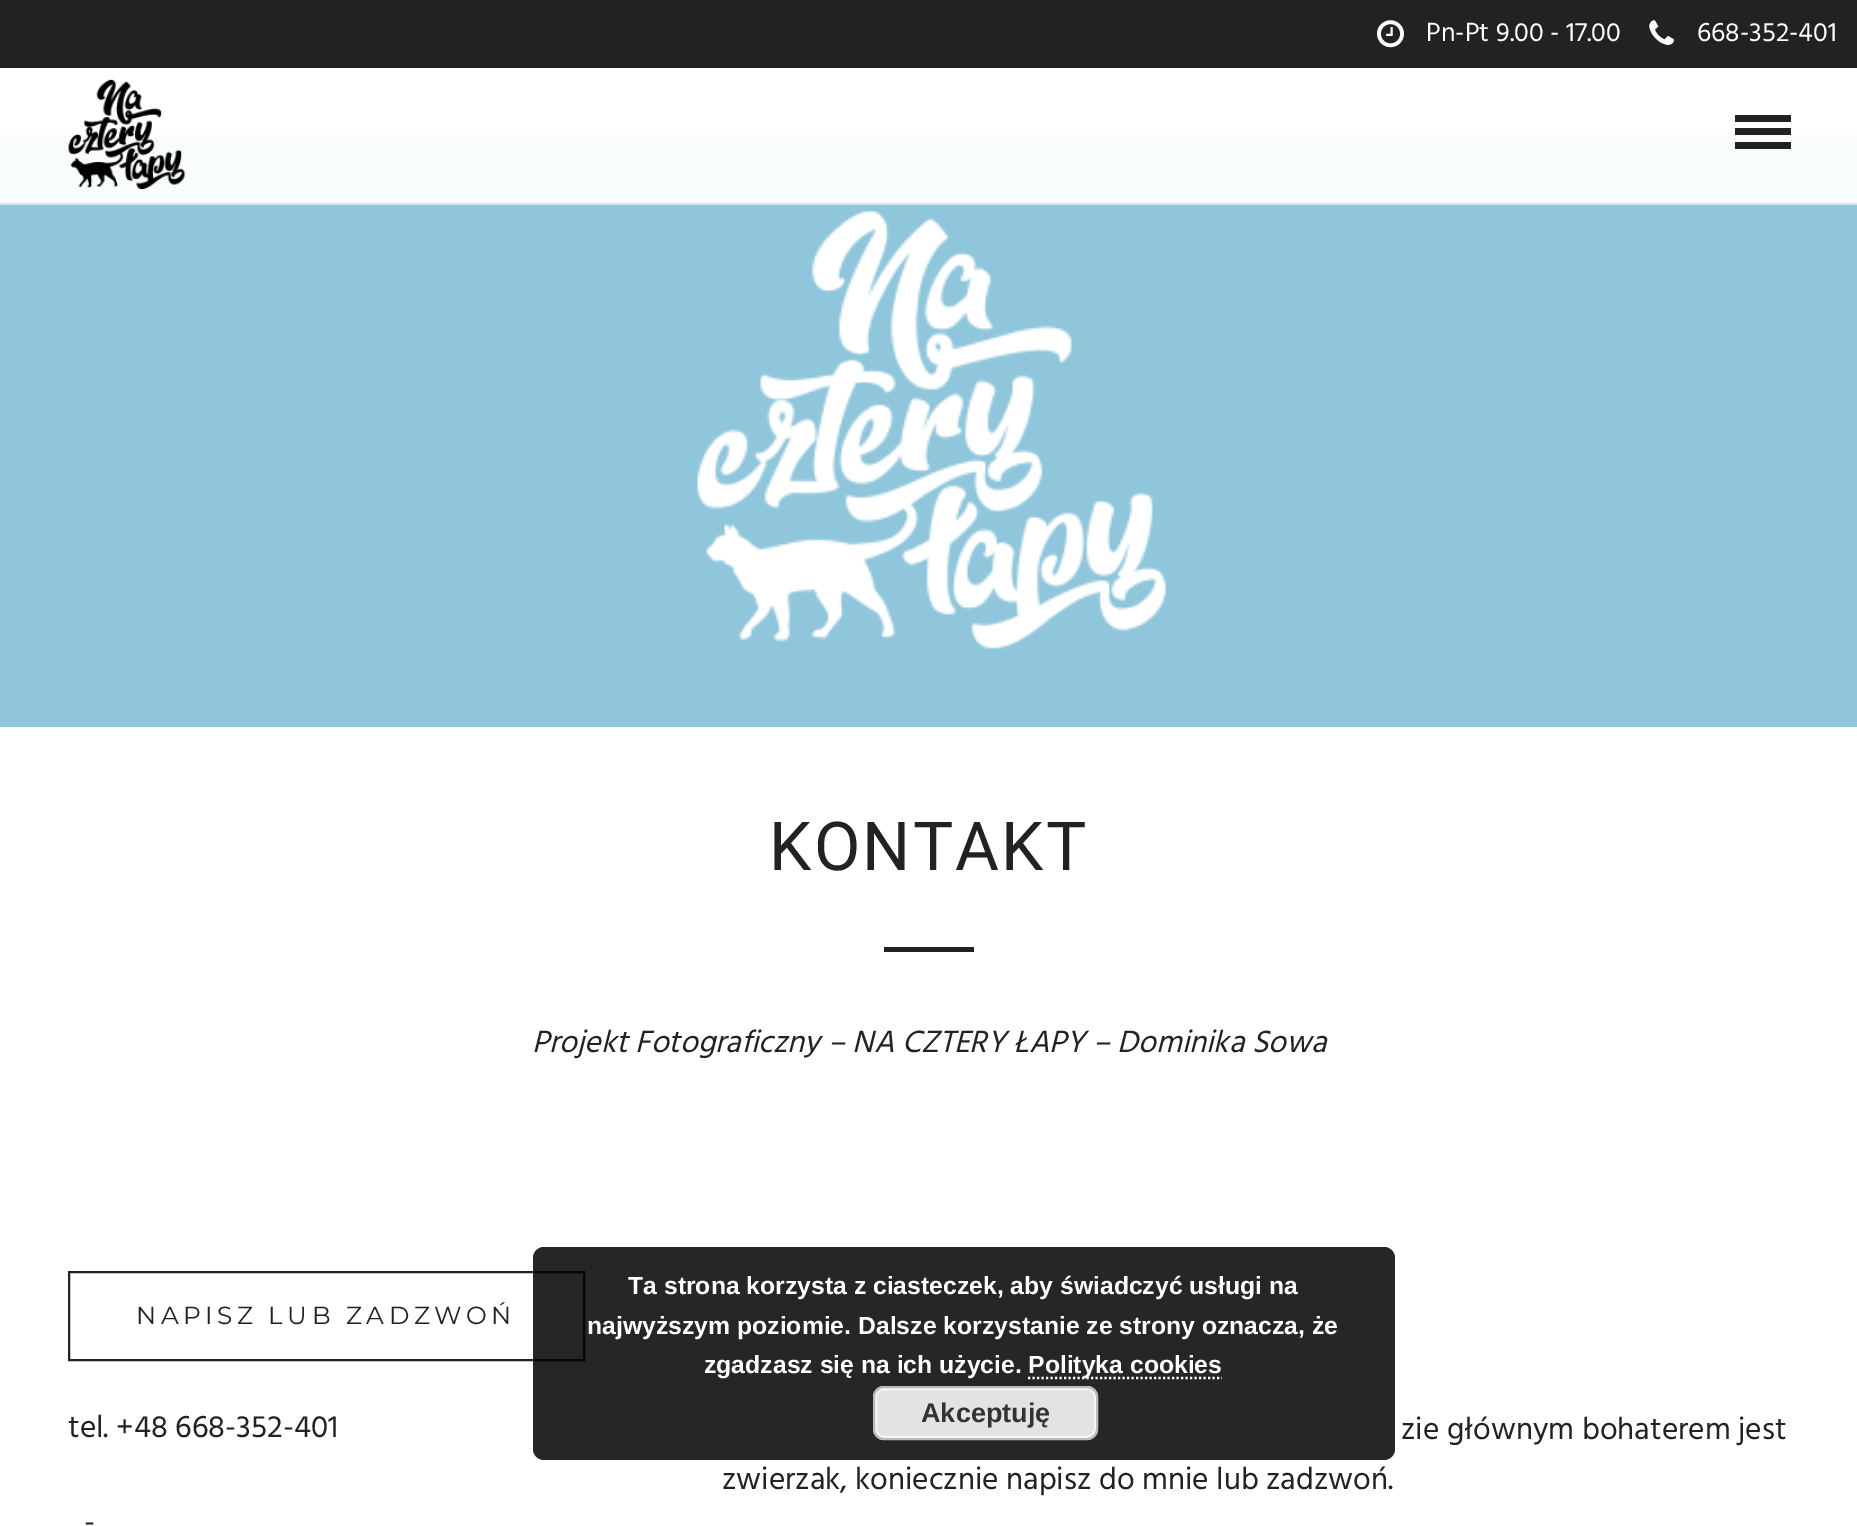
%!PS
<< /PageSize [1857 1526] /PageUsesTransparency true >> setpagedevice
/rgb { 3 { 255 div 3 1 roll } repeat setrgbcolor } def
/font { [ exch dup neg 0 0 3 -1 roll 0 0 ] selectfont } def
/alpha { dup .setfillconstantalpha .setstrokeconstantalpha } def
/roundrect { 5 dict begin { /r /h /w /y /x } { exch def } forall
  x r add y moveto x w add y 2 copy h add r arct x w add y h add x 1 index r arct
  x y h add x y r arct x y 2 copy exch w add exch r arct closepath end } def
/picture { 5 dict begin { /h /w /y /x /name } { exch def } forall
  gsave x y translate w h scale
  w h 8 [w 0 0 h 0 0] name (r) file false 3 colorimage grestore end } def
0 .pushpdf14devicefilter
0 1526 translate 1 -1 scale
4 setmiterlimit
255 255 255 rgb
0 0 1857 1526 rectfill
34 34 34 rgb
0 0 1857 68 rectfill
(img/1.rgb) 1377 20 27 28 picture
(img/2.rgb) 1649 20 25 25 picture
225 225 225 rgb
0 203 1857 2 rectfill
249 252 253 rgb
0 135 1857 68 rectfill
(img/3.rgb) 68 79 117 111 picture
[
  [1735 115 56 7 34 34 34]
  [1735 128 56 7 34 34 34]
  [1735 142 56 7 34 34 34]
  [0 205 1857 522 144 198 219]
] { aload pop rgb rectfill } forall
(img/4.rgb) 697 211 470 438 picture
34 34 34 rgb
884 947 90 5 rectfill
2 setlinewidth
69 1272 515 88 rectstroke
0.85 alpha
0 0 0 rgb
533 1247 862 213 11 roundrect fill
1 alpha
255 255 255 rgb
2.2 setlinewidth
[2.25 2.25] 0 setdash
1028 1378 moveto 1222 1378 lineto stroke
227 227 227 rgb
873 1386 225 54 11 roundrect fill
246 246 246 rgb
2 setlinewidth
[] 0 setdash
876 1389 219 48 8 roundrect stroke
187 187 187 rgb
874 1387 223 52 10 roundrect stroke
/Hind-Regular 27 font
255 255 255 rgb
1426 41 moveto (Pn-Pt 9.00 - 17.00) show
1697 41 moveto (668-352-401) show
/Roboto-Regular 67.5 font
34 34 34 rgb
769 870 moveto 2.25 0 (KONTAKT) ashow
/Hind-Italic 31.5 font
532 1052 moveto (Projekt Fotograficzny – NA CZTERY ŁAPY – Dominika Sowa) show
/Montserrat-Regular 24.75 font
136 1324 moveto 4.5 0 (NAPISZ LUB ZADZWOŃ) ashow
/Hind-Regular 31.5 font
[
  [(tel. +48 668-352-401) 68 1437]
  [(-) 84 1532]
  [(zie głównym bohaterem jest) 1401 1439]
  [(zwierzak, koniecznie napisz do mnie lub zadzwoń.) 722 1489]
] { aload pop moveto show } forall
/LiberationSans-Bold 24.75 font
255 255 255 rgb
[
  [(Ta strona korzysta z ciasteczek, aby świadczyć usługi na) 628 1294]
  [(najwyższym poziomie. Dalsze korzystanie ze strony oznacza, że) 587 1334]
  [(zgadzasz się na ich użycie.) 704 1373]
  [(Polityka cookies) 1028 1373]
] { aload pop moveto show } forall
/LiberationSans-Bold 27 font
51 51 51 rgb
921 1422 moveto (Akceptuję) show
.poppdf14devicefilter showpage
